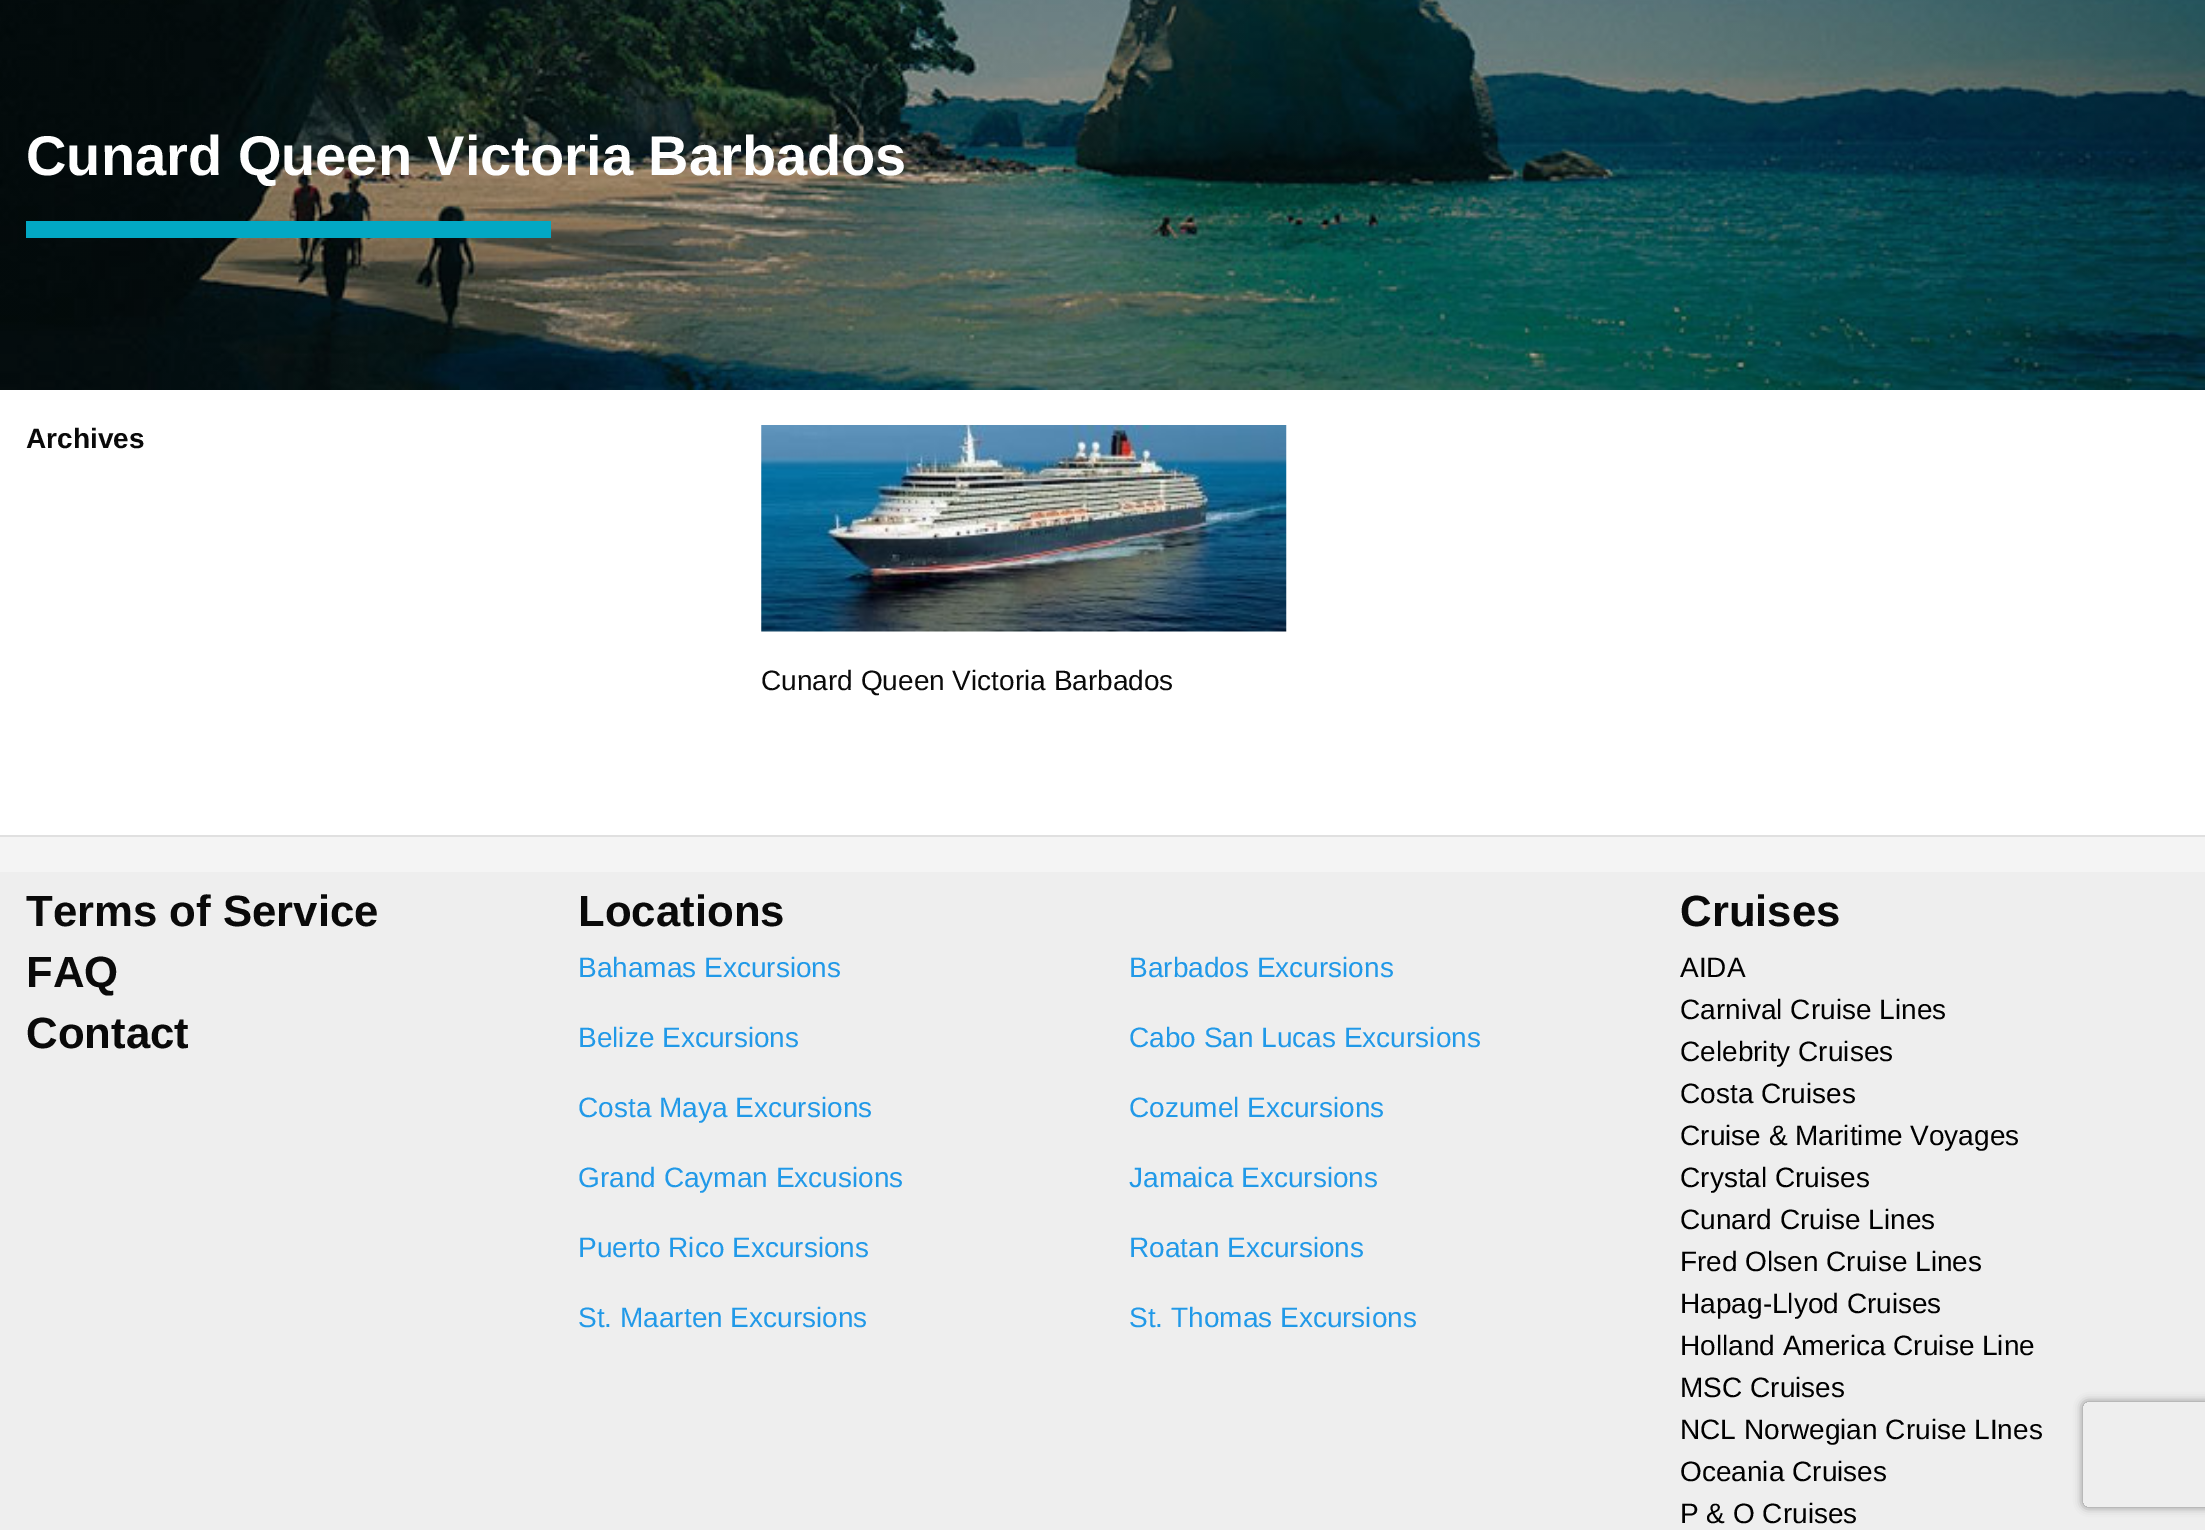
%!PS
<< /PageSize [2205 1530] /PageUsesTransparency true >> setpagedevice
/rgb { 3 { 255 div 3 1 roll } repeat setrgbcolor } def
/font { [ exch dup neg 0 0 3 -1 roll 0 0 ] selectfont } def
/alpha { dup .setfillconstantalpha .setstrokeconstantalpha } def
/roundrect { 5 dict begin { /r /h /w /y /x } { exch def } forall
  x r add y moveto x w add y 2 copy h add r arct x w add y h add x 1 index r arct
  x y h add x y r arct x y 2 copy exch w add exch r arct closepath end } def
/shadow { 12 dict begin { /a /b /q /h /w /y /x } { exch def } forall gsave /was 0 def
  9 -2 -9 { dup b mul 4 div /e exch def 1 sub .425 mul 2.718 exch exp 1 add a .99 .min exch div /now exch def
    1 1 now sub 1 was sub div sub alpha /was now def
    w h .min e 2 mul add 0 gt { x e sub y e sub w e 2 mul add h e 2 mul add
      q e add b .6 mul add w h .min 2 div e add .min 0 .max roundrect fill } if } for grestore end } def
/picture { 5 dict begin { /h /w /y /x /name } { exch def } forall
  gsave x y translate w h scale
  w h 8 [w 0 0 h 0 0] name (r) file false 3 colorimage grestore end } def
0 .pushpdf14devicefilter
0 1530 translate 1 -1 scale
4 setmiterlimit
255 255 255 rgb
0 0 2205 1530 rectfill
(img/1.rgb) 0 0 2205 390 picture
2 168 196 rgb
26 221 525 17 rectfill
(img/2.rgb) 761 425 526 207 picture
[
  [0 872 2205 658 238 238 238]
  [0 837 2205 35 244 244 244]
  [0 835 2205 2 224 224 224]
] { aload pop rgb rectfill } forall
gsave
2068 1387 moveto 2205 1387 lineto 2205 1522 lineto 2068 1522 lineto closepath 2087 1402 moveto 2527 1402 lineto 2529 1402 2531 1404 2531 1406 curveto 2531 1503 lineto 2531 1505 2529 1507 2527 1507 curveto 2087 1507 lineto 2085 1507 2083 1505 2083 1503 curveto 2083 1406 lineto 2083 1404 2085 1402 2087 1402 curveto closepath eoclip newpath
128 128 128 rgb
2083 1402 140 105 4 4.5 1 shadow
grestore
/LiberationSans-Bold 56 font
254 254 254 rgb
26 175 moveto (Cunard Queen Victoria Barbados) show
/LiberationSans-Bold 28 font
10 10 10 rgb
26 448 moveto (Archives) show
/LiberationSans-Regular 28 font
761 690 moveto (Cunard Queen Victoria Barbados) show
/LiberationSans-Bold 43.75 font
[
  [(Terms of Service) 26 926]
  [(FAQ) 26 987]
  [(Contact) 26 1048]
  [(Locations) 578 926]
] { aload pop moveto show } forall
/LiberationSans-Regular 28 font
33 153 232 rgb
[
  [(Bahamas Excursions) 578 977]
  [(Barbados Excursions) 1129 977]
  [(Belize Excursions) 578 1047]
  [(Cabo San Lucas Excursions) 1129 1047]
  [(Costa Maya Excursions) 578 1117]
  [(Cozumel Excursions) 1129 1117]
  [(Grand Cayman Excusions) 578 1187]
  [(Jamaica Excursions) 1129 1187]
  [(Puerto Rico Excursions) 578 1257]
  [(Roatan Excursions) 1129 1257]
  [(St. Maarten Excursions) 578 1327]
  [(St. Thomas Excursions) 1129 1327]
] { aload pop moveto show } forall
/LiberationSans-Bold 43.75 font
10 10 10 rgb
1680 926 moveto (Cruises) show
/LiberationSans-Regular 28 font
0 0 0 rgb
[
  [(AIDA) 1680 977]
  [(Carnival Cruise Lines) 1680 1019]
  [(Celebrity Cruises) 1680 1061]
  [(Costa Cruises) 1680 1103]
  [(Cruise & Maritime Voyages) 1680 1145]
  [(Crystal Cruises) 1680 1187]
  [(Cunard Cruise Lines) 1680 1229]
  [(Fred Olsen Cruise Lines) 1680 1271]
  [(Hapag-Llyod Cruises) 1680 1313]
  [(Holland America Cruise Line) 1680 1355]
  [(MSC Cruises) 1680 1397]
  [(NCL Norwegian Cruise LInes) 1680 1439]
  [(Oceania Cruises) 1680 1481]
  [(P & O Cruises) 1680 1523]
] { aload pop moveto show } forall
.poppdf14devicefilter showpage
